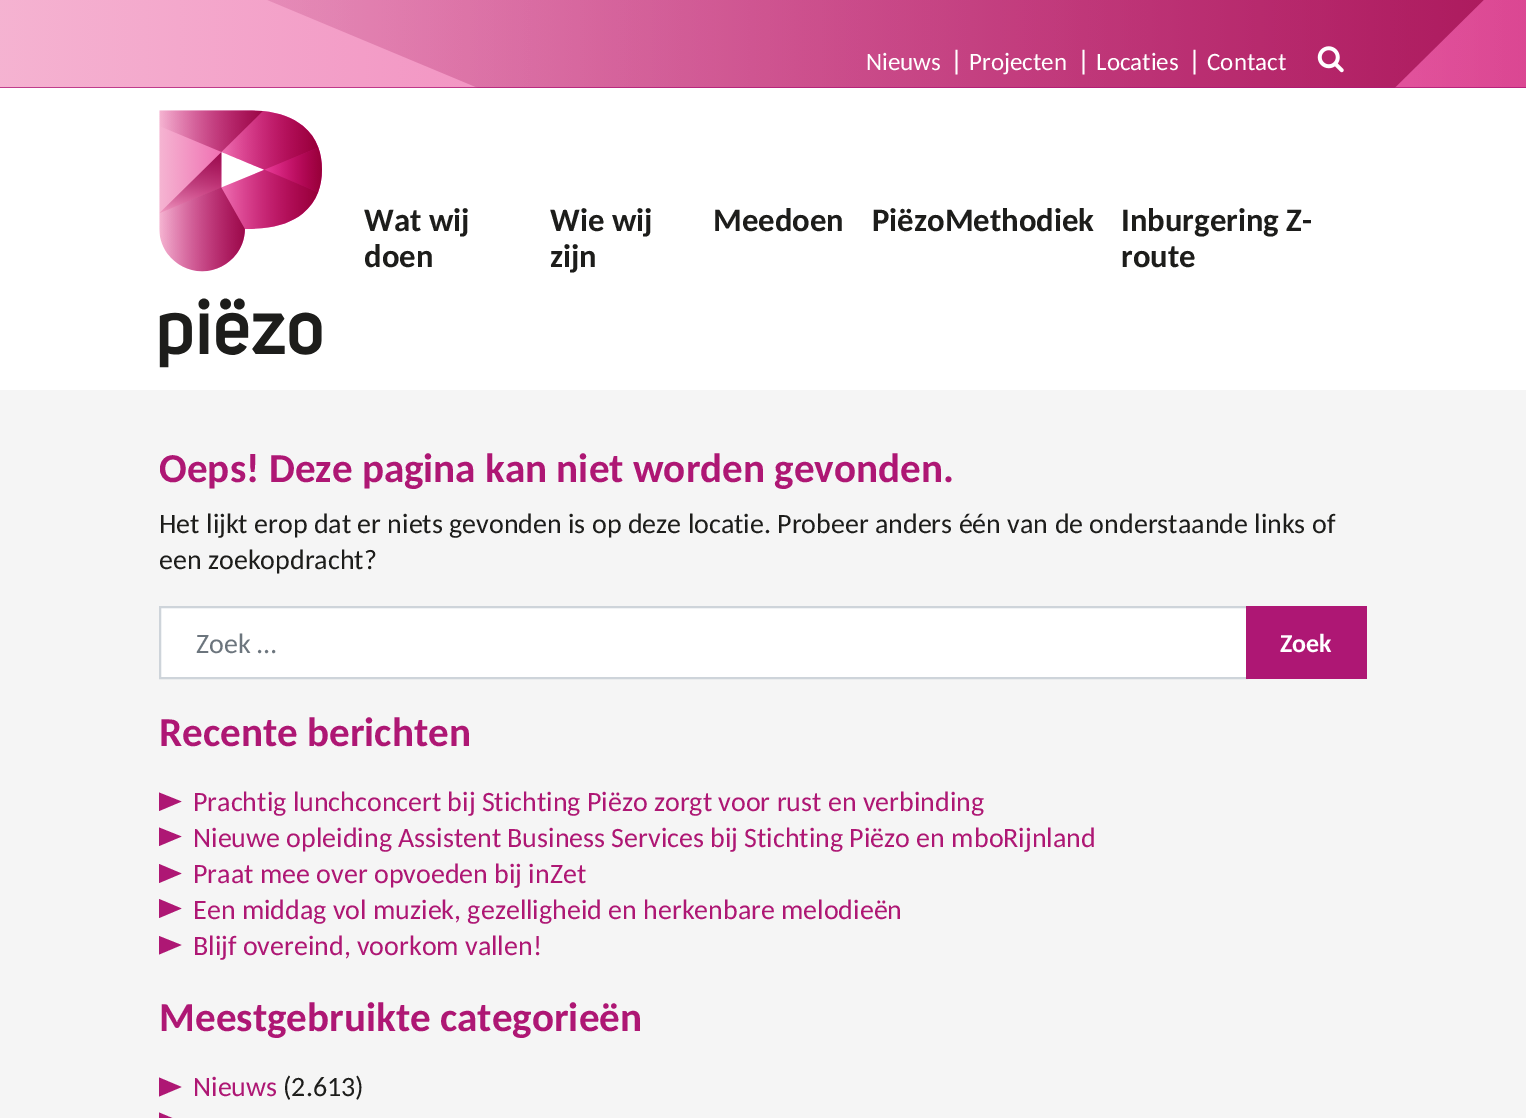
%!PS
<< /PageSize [1526 1118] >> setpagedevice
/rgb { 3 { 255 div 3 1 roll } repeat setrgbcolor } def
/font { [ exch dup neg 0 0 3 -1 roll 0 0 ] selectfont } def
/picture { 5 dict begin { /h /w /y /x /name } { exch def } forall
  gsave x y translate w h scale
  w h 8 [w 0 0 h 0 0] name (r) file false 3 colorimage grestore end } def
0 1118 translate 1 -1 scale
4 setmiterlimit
245 245 245 rgb
0 0 1526 1118 rectfill
174 23 116 rgb
0 87 1526 1 rectfill
(img/1.rgb) 0 0 1526 88 picture
(img/2.rgb) 1317 46 27 27 picture
255 255 255 rgb
0 88 1526 302 rectfill
(img/3.rgb) 159 110 163 258 picture
160 607 moveto 1247 607 lineto 1247 678 lineto 160 678 lineto closepath gsave fill grestore
206 212 218 rgb
2 setlinewidth
stroke
174 23 116 rgb
1246 606 121 73 rectfill
159 792.5 moveto 159 811 lineto 181.5 801.5 lineto closepath 159 827.5 moveto 159 846 lineto 181.5 836.5 lineto closepath fill
159 864 moveto 159 883 lineto 181.5 873.5 lineto closepath 159 899 moveto 159 918 lineto 181.5 908.5 lineto closepath fill
159 936 moveto 159 954.5 lineto 181.5 945 lineto closepath fill
159 1077.5 moveto 159 1096.5 lineto 181.5 1087 lineto closepath 159 1112.5 moveto 159 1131.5 lineto 181.5 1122 lineto closepath fill
/Carlito-Regular 25 font
255 255 255 rgb
866 70 moveto (Nieuws) show
/Carlito-Regular 28 font
950 70 moveto (|) show
/Carlito-Regular 25 font
969 70 moveto (Projecten) show
/Carlito-Regular 28 font
1077 70 moveto (|) show
/Carlito-Regular 25 font
1096 70 moveto (Locaties) show
/Carlito-Regular 28 font
1188 70 moveto (|) show
/Carlito-Regular 25 font
1207 70 moveto (Contact) show
/Carlito-Bold 32.75 font
29 29 27 rgb
[
  [(Wat wij) 364 231]
  [(doen) 364 267]
  [(Wie wij) 550 231]
  [(zijn) 550 267]
  [(Meedoen) 713 231]
  [(PiëzoMethodiek) 872 231]
  [(Inburgering Z-) 1121 231]
  [(route) 1121 267]
] { aload pop moveto show } forall
/Carlito-Bold 41.1 font
174 23 116 rgb
159 482 moveto (Oeps! Deze pagina kan niet worden gevonden.) show
/Carlito-Regular 28 font
29 29 27 rgb
159 533 moveto (Het lijkt erop dat er niets gevonden is op deze locatie. Probeer anders één van de onderstaande links of) show
159 569 moveto (een zoekopdracht?) show
108 117 125 rgb
196 653 moveto (Zoek …) show
/Carlito-Bold 26 font
255 255 255 rgb
1280 652 moveto (Zoek) show
/Carlito-Bold 41.1 font
174 23 116 rgb
159 746 moveto (Recente berichten) show
/Carlito-Regular 28 font
[
  [(Prachtig lunchconcert bij Stichting Piëzo zorgt voor rust en verbinding) 193 811]
  [(Nieuwe opleiding Assistent Business Services bij Stichting Piëzo en mboRijnland) 193 847]
  [(Praat mee over opvoeden bij inZet) 193 883]
  [(Een middag vol muziek, gezelligheid en herkenbare melodieën) 193 919]
  [(Blijf overeind, voorkom vallen!) 193 955]
] { aload pop moveto show } forall
/Carlito-Bold 41.1 font
159 1031 moveto (Meestgebruikte categorieën) show
/Carlito-Regular 28 font
193 1096 moveto (Nieuws) show
29 29 27 rgb
283 1096 moveto (\(2.613\)) show
showpage
